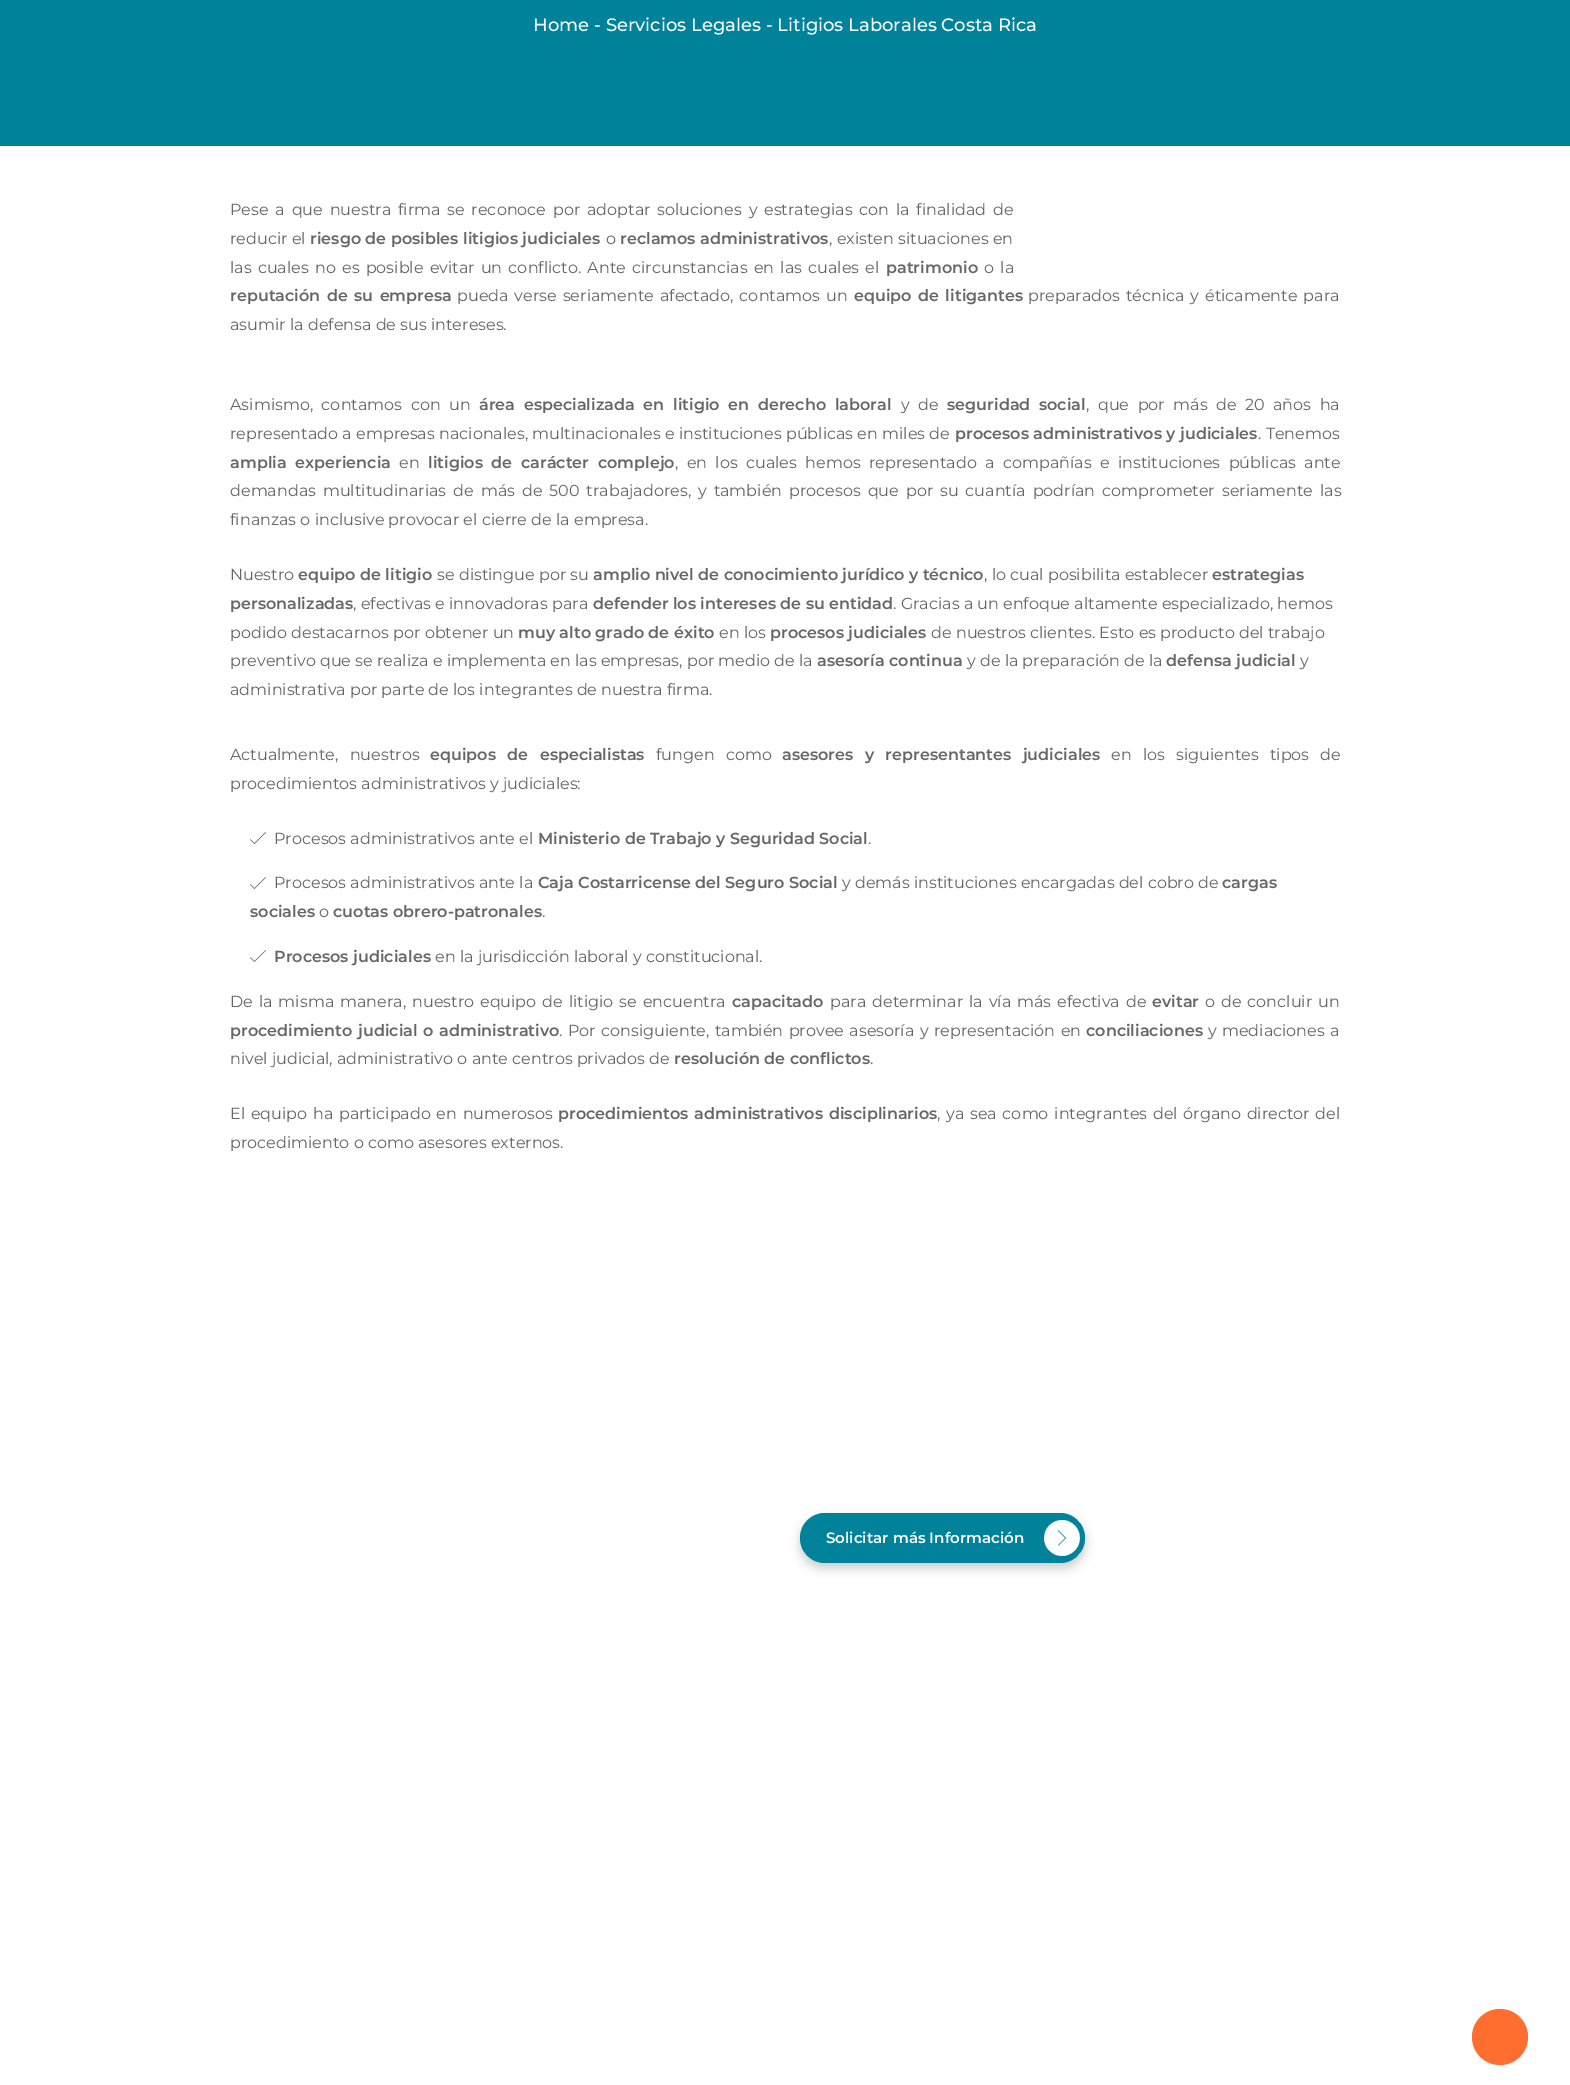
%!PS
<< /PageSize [1570 2085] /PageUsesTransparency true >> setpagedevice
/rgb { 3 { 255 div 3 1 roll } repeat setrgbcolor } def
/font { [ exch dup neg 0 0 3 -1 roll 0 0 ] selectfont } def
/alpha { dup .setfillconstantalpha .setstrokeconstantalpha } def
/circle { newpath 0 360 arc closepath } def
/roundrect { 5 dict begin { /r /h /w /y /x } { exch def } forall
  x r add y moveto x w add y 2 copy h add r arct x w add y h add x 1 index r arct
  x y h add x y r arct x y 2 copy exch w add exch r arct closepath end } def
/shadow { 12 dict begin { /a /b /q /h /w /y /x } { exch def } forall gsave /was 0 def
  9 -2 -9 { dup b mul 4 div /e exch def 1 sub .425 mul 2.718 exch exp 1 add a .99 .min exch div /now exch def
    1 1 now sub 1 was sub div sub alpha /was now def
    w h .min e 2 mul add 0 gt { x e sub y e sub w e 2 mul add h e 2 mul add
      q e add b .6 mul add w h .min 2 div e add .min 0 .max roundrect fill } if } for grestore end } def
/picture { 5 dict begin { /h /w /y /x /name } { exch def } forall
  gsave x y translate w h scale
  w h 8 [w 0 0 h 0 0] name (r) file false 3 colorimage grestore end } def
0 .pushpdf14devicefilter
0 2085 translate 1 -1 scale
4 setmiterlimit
255 255 255 rgb
0 0 1570 2085 rectfill
0 130 154 rgb
0 0 1570 146 rectfill
(img/1.rgb) 250 832 16 12 picture
(img/1.rgb) 250 877 16 12 picture
(img/1.rgb) 250 950 16 12 picture
0 0 0 rgb
800 1518 285 50 25 5 0.2 shadow
0 130 154 rgb
800 1513 285 50 25 roundrect fill
(img/2.rgb) 1044 1520 36 36 picture
255 110 47 rgb
1500 2037 28 circle fill
/Montserrat-Medium 18 font
255 255 255 rgb
533 31 moveto (Home - Servicios Legales - Litigios Laborales Costa Rica) show
/Montserrat-Regular 16 font
102 102 102 rgb
230 215 moveto 2.6 0 32 (Pese a que nuestra firma se reconoce por adoptar soluciones y estrategias con la finalidad de) widthshow
230 244 moveto (reducir el) show
/Montserrat-SemiBold 16 font
310 244 moveto (riesgo de posibles litigios judiciales) show
/Montserrat-Regular 16 font
606 244 moveto (o) show
/Montserrat-SemiBold 16 font
620 244 moveto (reclamos administrativos) show
/Montserrat-Regular 16 font
829 244 moveto (, existen situaciones en) show
230 273 moveto 2 0 32 (las cuales no es posible evitar un conflicto. Ante circunstancias en las cuales el) widthshow
/Montserrat-SemiBold 16 font
886 273 moveto (patrimonio) show
/Montserrat-Regular 16 font
984 273 moveto 2 0 32 (o la) widthshow
/Montserrat-SemiBold 16 font
230 301 moveto 2 0 32 (reputación de su empresa) widthshow
/Montserrat-Regular 16 font
457 301 moveto 1.75 0 32 (pueda verse seriamente afectado, contamos un) widthshow
/Montserrat-SemiBold 16 font
854 301 moveto 2 0 32 (equipo de litigantes) widthshow
/Montserrat-Regular 16 font
1028 301 moveto 1.75 0 32 (preparados técnica y éticamente para) widthshow
230 330 moveto (asumir la defensa de sus intereses.) show
230 410 moveto 4.25 0 32 (Asimismo, contamos con un) widthshow
/Montserrat-SemiBold 16 font
479 410 moveto 4.25 0 32 (área especializada en litigio en derecho laboral) widthshow
/Montserrat-Regular 16 font
901 410 moveto 4.25 0 32 (y de) widthshow
/Montserrat-SemiBold 16 font
947 410 moveto 4.25 0 32 (seguridad social) widthshow
/Montserrat-Regular 16 font
1086 410 moveto 4.25 0 32 (, que por más de 20 años ha) widthshow
230 439 moveto 0.1 0 32 (representado a empresas nacionales, multinacionales e instituciones públicas en miles de) widthshow
/Montserrat-SemiBold 16 font
955 439 moveto (procesos administrativos y judiciales) show
/Montserrat-Regular 16 font
1258 439 moveto (. Tenemos) show
/Montserrat-SemiBold 16 font
230 468 moveto 4.1 0 32 (amplia experiencia) widthshow
/Montserrat-Regular 16 font
399 468 moveto (en) show
/Montserrat-SemiBold 16 font
428 468 moveto 4.1 0 32 (litigios de carácter complejo) widthshow
/Montserrat-Regular 16 font
675 468 moveto 4.1 0 32 (, en los cuales hemos representado a compañías e instituciones públicas ante) widthshow
230 496 moveto 2.75 0 32 (demandas multitudinarias de más de 500 trabajadores, y también procesos que por su cuantía podrían comprometer seriamente las) widthshow
230 525 moveto (finanzas o inclusive provocar el cierre de la empresa.) show
230 580 moveto (Nuestro) show
/Montserrat-SemiBold 16 font
298 580 moveto (equipo de litigio) show
/Montserrat-Regular 16 font
437 580 moveto (se distingue por su) show
/Montserrat-SemiBold 16 font
593 580 moveto (amplio nivel de conocimiento jurídico y técnico) show
/Montserrat-Regular 16 font
984 580 moveto (, lo cual posibilita establecer) show
/Montserrat-SemiBold 16 font
1212 580 moveto (estrategias) show
230 609 moveto (personalizadas) show
/Montserrat-Regular 16 font
353 609 moveto (, efectivas e innovadoras para) show
/Montserrat-SemiBold 16 font
593 609 moveto (defender los intereses de su entidad) show
/Montserrat-Regular 16 font
893 609 moveto (. Gracias a un enfoque altamente especializado, hemos) show
230 638 moveto (podido destacarnos por obtener un) show
/Montserrat-SemiBold 16 font
518 638 moveto (muy alto grado de éxito) show
/Montserrat-Regular 16 font
719 638 moveto (en los) show
/Montserrat-SemiBold 16 font
770 638 moveto (procesos judiciales) show
/Montserrat-Regular 16 font
931 638 moveto (de nuestros clientes. Esto es producto del trabajo) show
230 666 moveto (preventivo que se realiza e implementa en las empresas, por medio de la) show
/Montserrat-SemiBold 16 font
817 666 moveto (asesoría continua) show
/Montserrat-Regular 16 font
967 666 moveto (y de la preparación de la) show
/Montserrat-SemiBold 16 font
1166 666 moveto (defensa judicial) show
/Montserrat-Regular 16 font
1300 666 moveto (y) show
230 695 moveto (administrativa por parte de los integrantes de nuestra firma.) show
230 760 moveto 7 0 32 (Actualmente, nuestros) widthshow
/Montserrat-SemiBold 16 font
430 760 moveto 7 0 32 (equipos de especialistas) widthshow
/Montserrat-Regular 16 font
656 760 moveto 7 0 32 (fungen como) widthshow
/Montserrat-SemiBold 16 font
782 760 moveto 7 0 32 (asesores y representantes judiciales) widthshow
/Montserrat-Regular 16 font
1111 760 moveto 7 0 32 (en los siguientes tipos de) widthshow
230 789 moveto (procedimientos administrativos y judiciales:) show
274 844 moveto (Procesos administrativos ante el) show
/Montserrat-SemiBold 16 font
538 844 moveto (Ministerio de Trabajo y Seguridad Social) show
/Montserrat-Regular 16 font
868 844 moveto (.) show
274 888 moveto (Procesos administrativos ante la) show
/Montserrat-SemiBold 16 font
538 888 moveto (Caja Costarricense del Seguro Social) show
/Montserrat-Regular 16 font
842 888 moveto (y demás instituciones encargadas del cobro de) show
/Montserrat-SemiBold 16 font
1222 888 moveto (cargas) show
250 917 moveto (sociales) show
/Montserrat-Regular 16 font
319 917 moveto (o) show
/Montserrat-SemiBold 16 font
333 917 moveto (cuotas obrero-patronales) show
/Montserrat-Regular 16 font
542 917 moveto (.) show
/Montserrat-SemiBold 16 font
274 962 moveto (Procesos judiciales) show
/Montserrat-Regular 16 font
435 962 moveto (en la jurisdicción laboral y constitucional.) show
230 1007 moveto 1.75 0 32 (De la misma manera, nuestro equipo de litigio se encuentra) widthshow
/Montserrat-SemiBold 16 font
732 1007 moveto (capacitado) show
/Montserrat-Regular 16 font
830 1007 moveto 1.75 0 32 (para determinar la vía más efectiva de) widthshow
/Montserrat-SemiBold 16 font
1152 1007 moveto (evitar) show
/Montserrat-Regular 16 font
1205 1007 moveto 1.75 0 32 (o de concluir un) widthshow
/Montserrat-SemiBold 16 font
230 1036 moveto 1.25 0 32 (procedimiento judicial o administrativo) widthshow
/Montserrat-Regular 16 font
559 1036 moveto 1.25 0 32 (. Por consiguiente, también provee asesoría y representación en) widthshow
/Montserrat-SemiBold 16 font
1086 1036 moveto (conciliaciones) show
/Montserrat-Regular 16 font
1208 1036 moveto 1 0 32 (y mediaciones a) widthshow
230 1064 moveto (nivel judicial, administrativo o ante centros privados de) show
/Montserrat-SemiBold 16 font
674 1064 moveto (resolución de conflictos) show
/Montserrat-Regular 16 font
870 1064 moveto (.) show
230 1119 moveto 1.5 0 32 (El equipo ha participado en numerosos) widthshow
/Montserrat-SemiBold 16 font
558 1119 moveto 1.5 0 32 (procedimientos administrativos disciplinarios) widthshow
/Montserrat-Regular 16 font
937 1119 moveto 1.5 0 32 (, ya sea como integrantes del órgano director del) widthshow
230 1148 moveto (procedimiento o como asesores externos.) show
/Montserrat-SemiBold 15 font
255 255 255 rgb
826 1543 moveto (Solicitar más Información) show
.poppdf14devicefilter showpage
